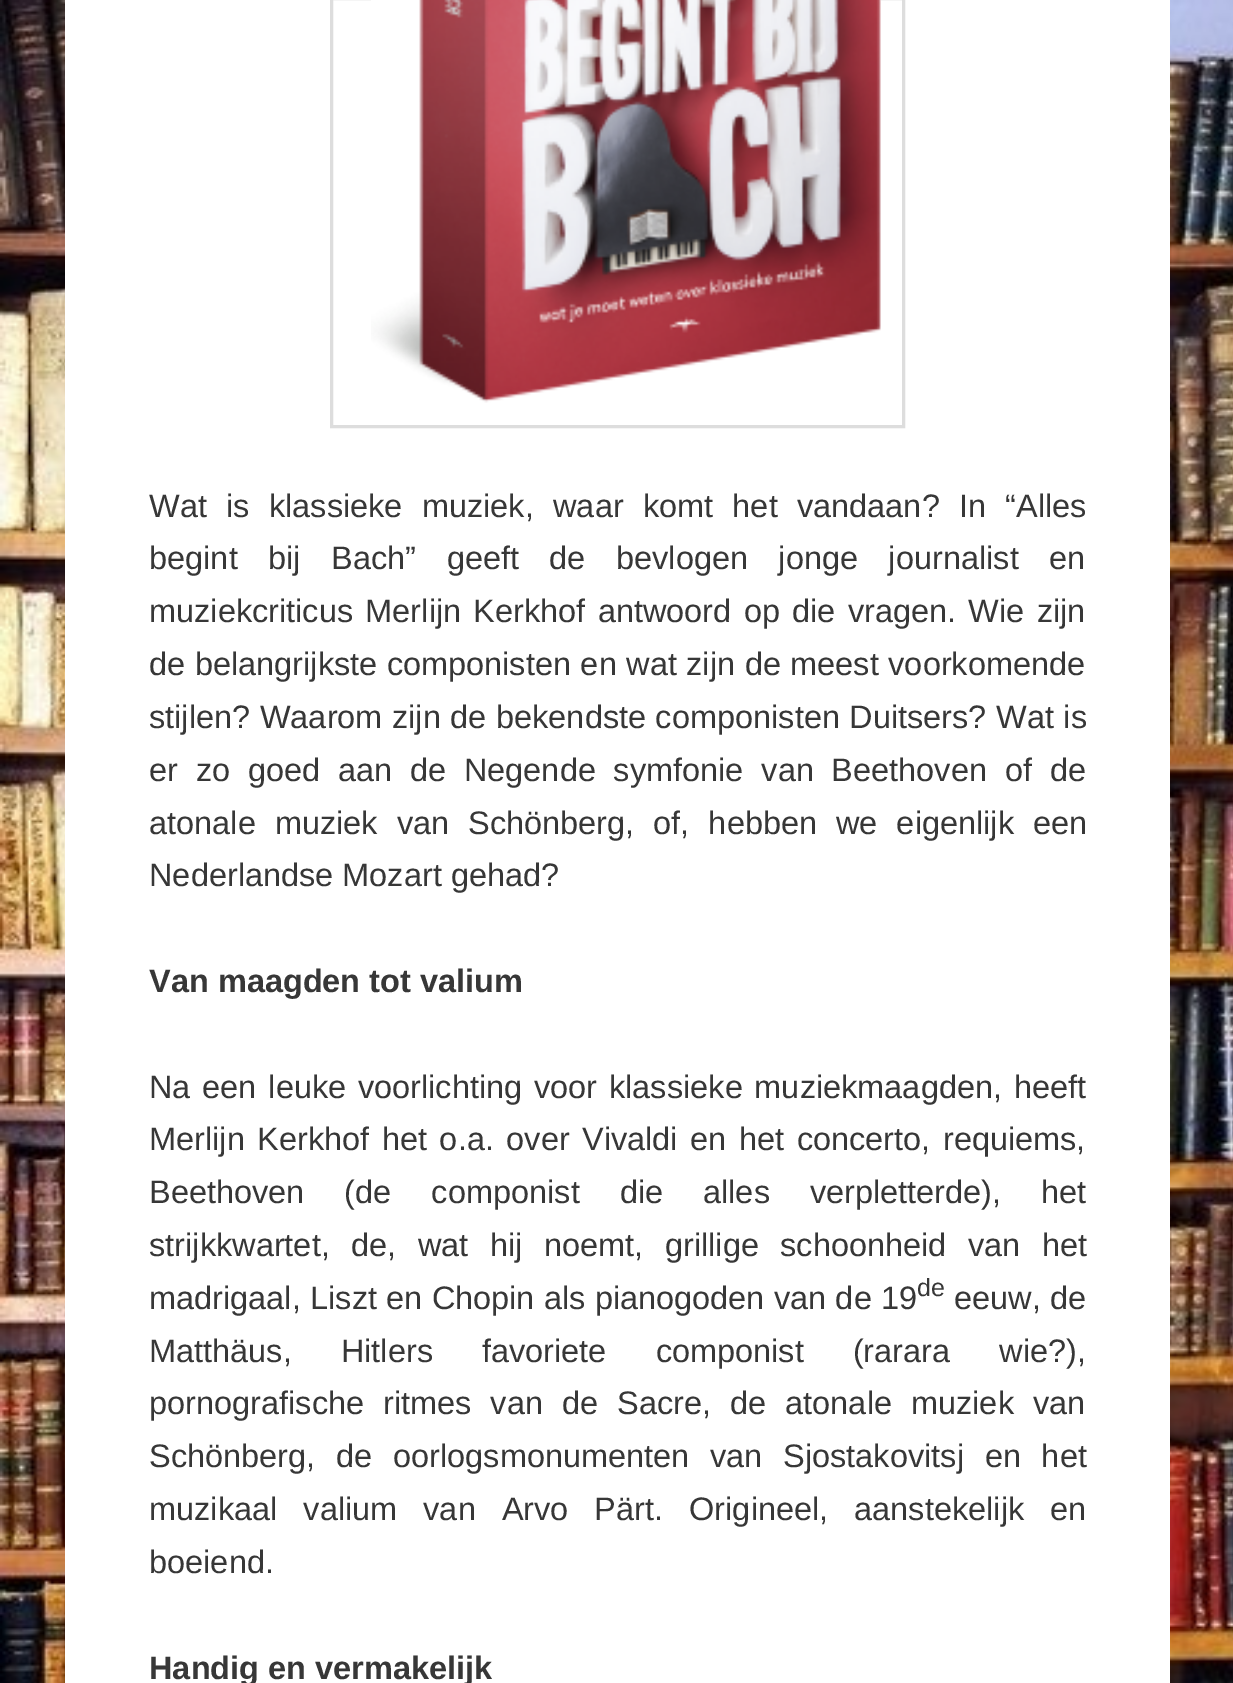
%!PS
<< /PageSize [1233 1683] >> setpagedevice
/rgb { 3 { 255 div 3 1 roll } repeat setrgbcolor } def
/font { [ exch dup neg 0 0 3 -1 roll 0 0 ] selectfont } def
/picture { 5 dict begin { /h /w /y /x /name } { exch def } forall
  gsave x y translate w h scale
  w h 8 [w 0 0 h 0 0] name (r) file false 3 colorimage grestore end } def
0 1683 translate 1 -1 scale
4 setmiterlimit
255 255 255 rgb
0 0 1233 1683 rectfill
(img/1.rgb) 0 0 1233 1683 picture
65 0 1105 1683 rectfill
221 221 221 rgb
3 setlinewidth
331.5 -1.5 572 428 rectstroke
(img/2.rgb) 371 0 510 403 picture
/LiberationSans-Regular 32.5 font
55 55 55 rgb
149 517 moveto 10.25 0 32 (Wat is klassieke muziek, waar komt het vandaan? In “Alles) widthshow
149 569 moveto 21.5 0 32 (begint bij Bach” geeft de bevlogen jonge journalist en) widthshow
149 622 moveto 3.25 0 32 (muziekcriticus Merlijn Kerkhof antwoord op die vragen. Wie zijn) widthshow
149 675 moveto 0.5 0 32 (de belangrijkste componisten en wat zijn de meest voorkomende) widthshow
149 728 moveto 0.5 0 32 (stijlen? Waarom zijn de bekendste componisten Duitsers? Wat is) widthshow
149 781 moveto 8.75 0 32 (er zo goed aan de Negende symfonie van Beethoven of de) widthshow
149 834 moveto 10 0 32 (atonale muziek van Schönberg, of, hebben we eigenlijk een) widthshow
149 886 moveto (Nederlandse Mozart gehad?) show
/LiberationSans-Bold 32.5 font
149 992 moveto (Van maagden tot valium) show
/LiberationSans-Regular 32.5 font
149 1098 moveto 2.75 0 32 (Na een leuke voorlichting voor klassieke muziekmaagden, heeft) widthshow
149 1150 moveto 3.5 0 32 (Merlijn Kerkhof het o.a. over Vivaldi en het concerto, requiems,) widthshow
149 1203 moveto 31 0 32 (Beethoven \(de componist die alles verpletterde\), het) widthshow
149 1256 moveto 12.5 0 32 (strijkkwartet, de, wat hij noemt, grillige schoonheid van het) widthshow
149 1309 moveto 0.25 0 32 (madrigaal, Liszt en Chopin als pianogoden van de 19) widthshow
/LiberationSans-Regular 25 font
917 1296 moveto (de) show
/LiberationSans-Regular 32.5 font
954 1309 moveto (eeuw, de) show
149 1362 moveto 40 0 32 (Matthäus, Hitlers favoriete componist \(rarara wie?\),) widthshow
149 1414 moveto 10 0 32 (pornografische ritmes van de Sacre, de atonale muziek van) widthshow
149 1467 moveto 11.75 0 32 (Schönberg, de oorlogsmonumenten van Sjostakovitsj en het) widthshow
149 1520 moveto 17 0 32 (muzikaal valium van Arvo Pärt. Origineel, aanstekelijk en) widthshow
149 1573 moveto (boeiend.) show
/LiberationSans-Bold 32.5 font
149 1679 moveto (Handig en vermakelijk) show
showpage
